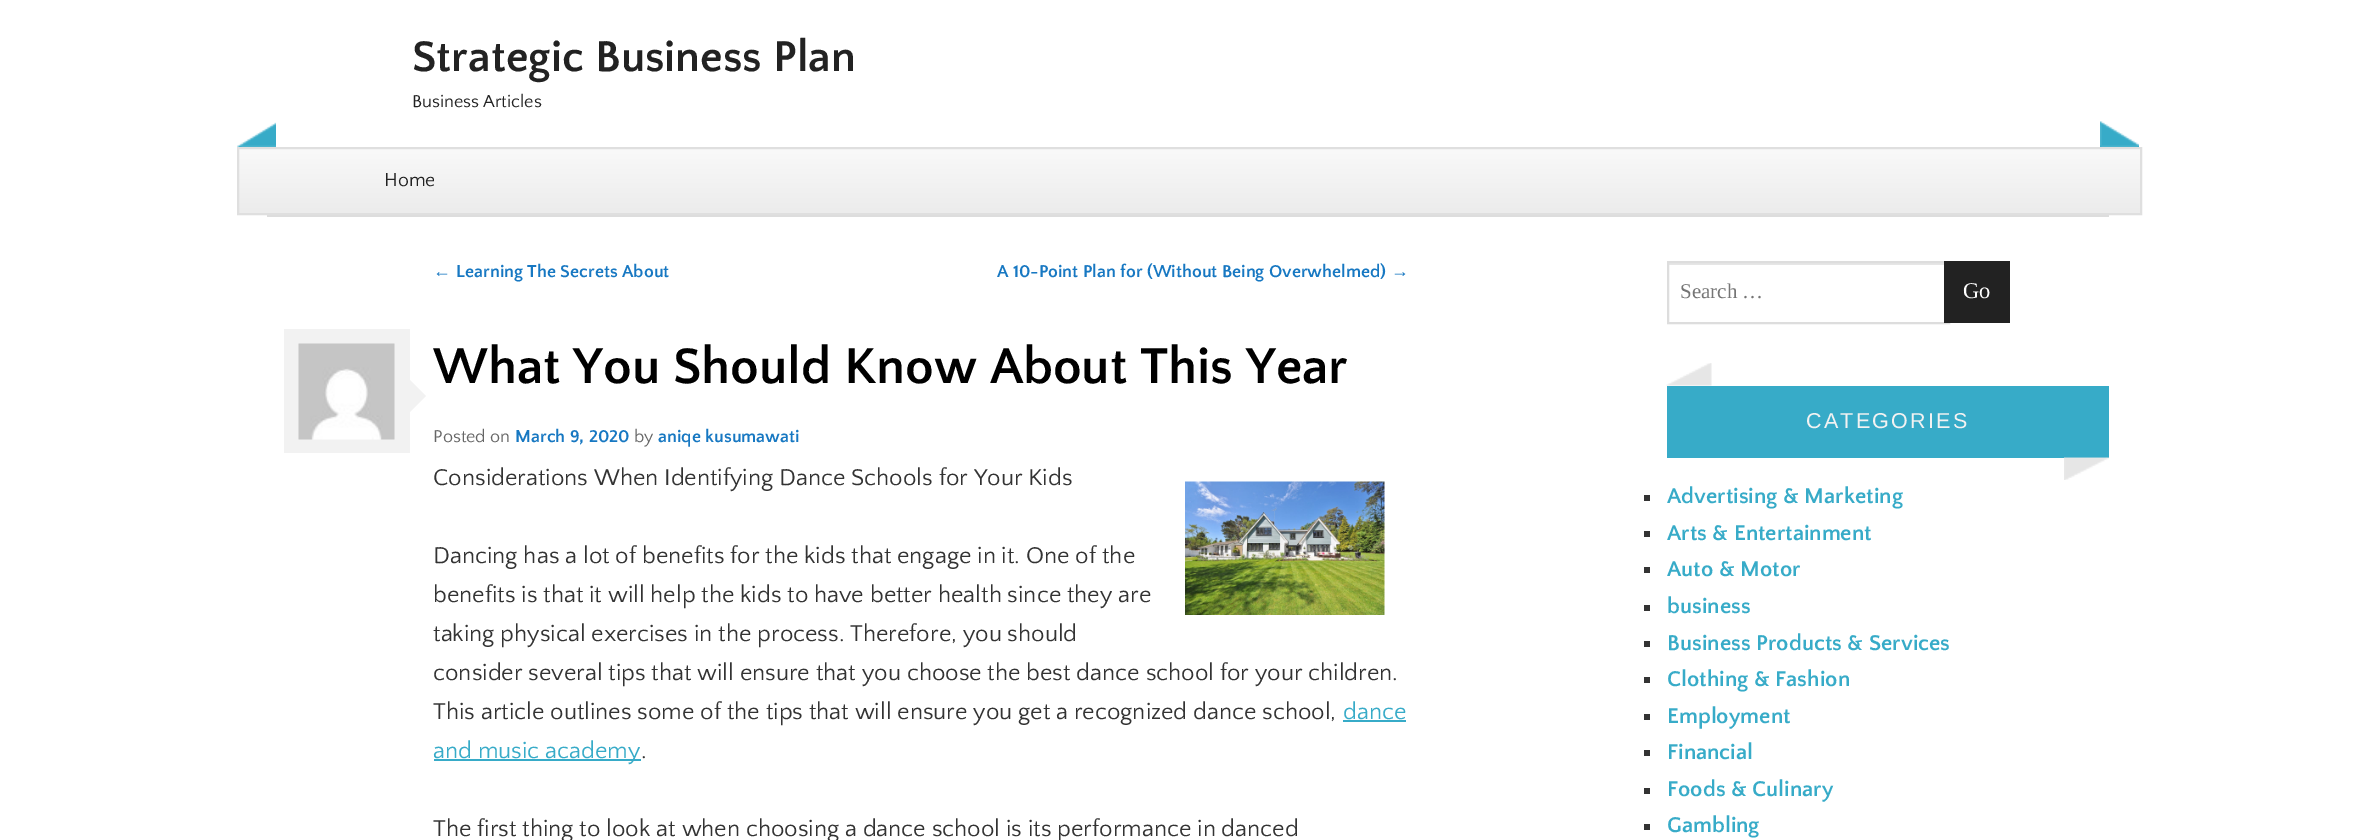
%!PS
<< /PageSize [2375 840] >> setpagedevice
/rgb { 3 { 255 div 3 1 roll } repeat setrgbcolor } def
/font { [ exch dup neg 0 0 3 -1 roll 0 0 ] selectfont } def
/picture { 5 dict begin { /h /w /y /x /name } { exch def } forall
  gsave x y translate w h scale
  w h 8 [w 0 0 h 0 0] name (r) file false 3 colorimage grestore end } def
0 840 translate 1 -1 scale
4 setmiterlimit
255 255 255 rgb
0 0 2375 840 rectfill
(img/1.rgb) 237 122 39 25 picture
(img/2.rgb) 2100 121 39 26 picture
gsave 239 149 moveto 2140 149 lineto 2140 213 lineto 239 213 lineto closepath clip newpath
<< /ShadingType 2 /ColorSpace /DeviceRGB /Coords [1190 213 1190 149] /Extend [true true] /Function << /FunctionType 2 /Domain [0 1] /C0 [0.925 0.925 0.925] /C1 [0.976 0.976 0.976] /N 1 >> >> shfill grestore
223 223 223 rgb
2 setlinewidth
238 148 1903 66 rectstroke
221 221 221 rgb
267 215 1842 2 rectfill
242 242 242 rgb
284 329 126 124 rectfill
(img/3.rgb) 298 343 97 97 picture
404 418 moveto 404 374 lineto 426 396 lineto closepath fill
(img/4.rgb) 1185 481 200 134 picture
[
  [1343 720 63 2 55 171 200]
  [434 759 207 2 55 171 200]
  [1668 263 281 2 230 230 230]
] { aload pop rgb rectfill } forall
221 221 221 rgb
1668 262 281 61 rectstroke
34 34 34 rgb
1944 261 66 62 rectfill
(img/5.rgb) 1666 363 46 23 picture
55 171 200 rgb
1667 386 442 72 rectfill
(img/6.rgb) 2064 457 45 23 picture
[
  [1644 495 6 6 51 51 51]
  [1644 531 6 6 51 51 51]
  [1644 567 6 6 51 51 51]
  [1644 605 6 6 51 51 51]
  [1644 641 6 6 51 51 51]
  [1644 677 6 6 51 51 51]
  [1644 714 6 6 51 51 51]
  [1644 750 6 6 51 51 51]
  [1644 788 6 6 51 51 51]
  [1644 824 6 6 51 51 51]
] { aload pop rgb rectfill } forall
/QuattrocentoSans-Bold 45 font
34 34 34 rgb
412 71 moveto (Strategic Business Plan) show
/QuattrocentoSans-Regular 18 font
412 107 moveto (Business Articles) show
/QuattrocentoSans-Regular 19.5 font
384 186 moveto (Home) show
/LiberationSans-Bold 18 font
23 120 194 rgb
433 277 moveto (←) show
/QuattrocentoSans-Bold 18 font
456 277 moveto (Learning The Secrets About) show
997 277 moveto (A 10-Point Plan for \(Without Being Overwhelmed\)) show
/LiberationSans-Bold 18 font
1391 277 moveto (→) show
/QuattrocentoSans-Bold 52.5 font
0 0 0 rgb
433 383 moveto (What You Should Know About This Year) show
/QuattrocentoSans-Regular 18 font
102 102 102 rgb
433 442 moveto (Posted on) show
/QuattrocentoSans-Bold 18 font
23 120 194 rgb
515 442 moveto (March 9, 2020) show
/QuattrocentoSans-Regular 18 font
102 102 102 rgb
634 442 moveto (by) show
/QuattrocentoSans-Bold 18 font
23 120 194 rgb
658 442 moveto (aniqe kusumawati) show
/QuattrocentoSans-Regular 24 font
51 51 51 rgb
[
  [(Considerations When Identifying Dance Schools for Your Kids) 433 485]
  [(Dancing has a lot of benefits for the kids that engage in it. One of the) 433 563]
  [(benefits is that it will help the kids to have better health since they are) 433 602]
  [(taking physical exercises in the process. Therefore, you should) 433 641]
  [(consider several tips that will ensure that you choose the best dance school for your children.) 433 680]
  [(This article outlines some of the tips that will ensure you get a recognized dance school,) 433 719]
] { aload pop moveto show } forall
55 171 200 rgb
1343 719 moveto (dance) show
433 758 moveto (and music academy) show
51 51 51 rgb
641 758 moveto (.) show
433 836 moveto (The first thing to look at when choosing a dance school is its performance in danced) show
/LiberationSerif-Regular 21 font
117 117 117 rgb
1680 298 moveto (Search …) show
/LiberationSerif-Regular 22.5 font
255 255 255 rgb
1963 298 moveto (Go) show
/LiberationSans-Regular 21.5 font
242 242 242 rgb
1806 428 moveto 2.25 0 (CATEGORIES) ashow
/QuattrocentoSans-Bold 22.5 font
55 171 200 rgb
[
  [(Advertising & Marketing) 1667 503]
  [(Arts & Entertainment) 1667 540]
  [(Auto & Motor) 1667 576]
  [(business) 1667 613]
  [(Business Products & Services) 1667 650]
  [(Clothing & Fashion) 1667 686]
  [(Employment) 1667 723]
  [(Financial) 1667 759]
  [(Foods & Culinary) 1667 796]
  [(Gambling) 1667 832]
] { aload pop moveto show } forall
showpage
